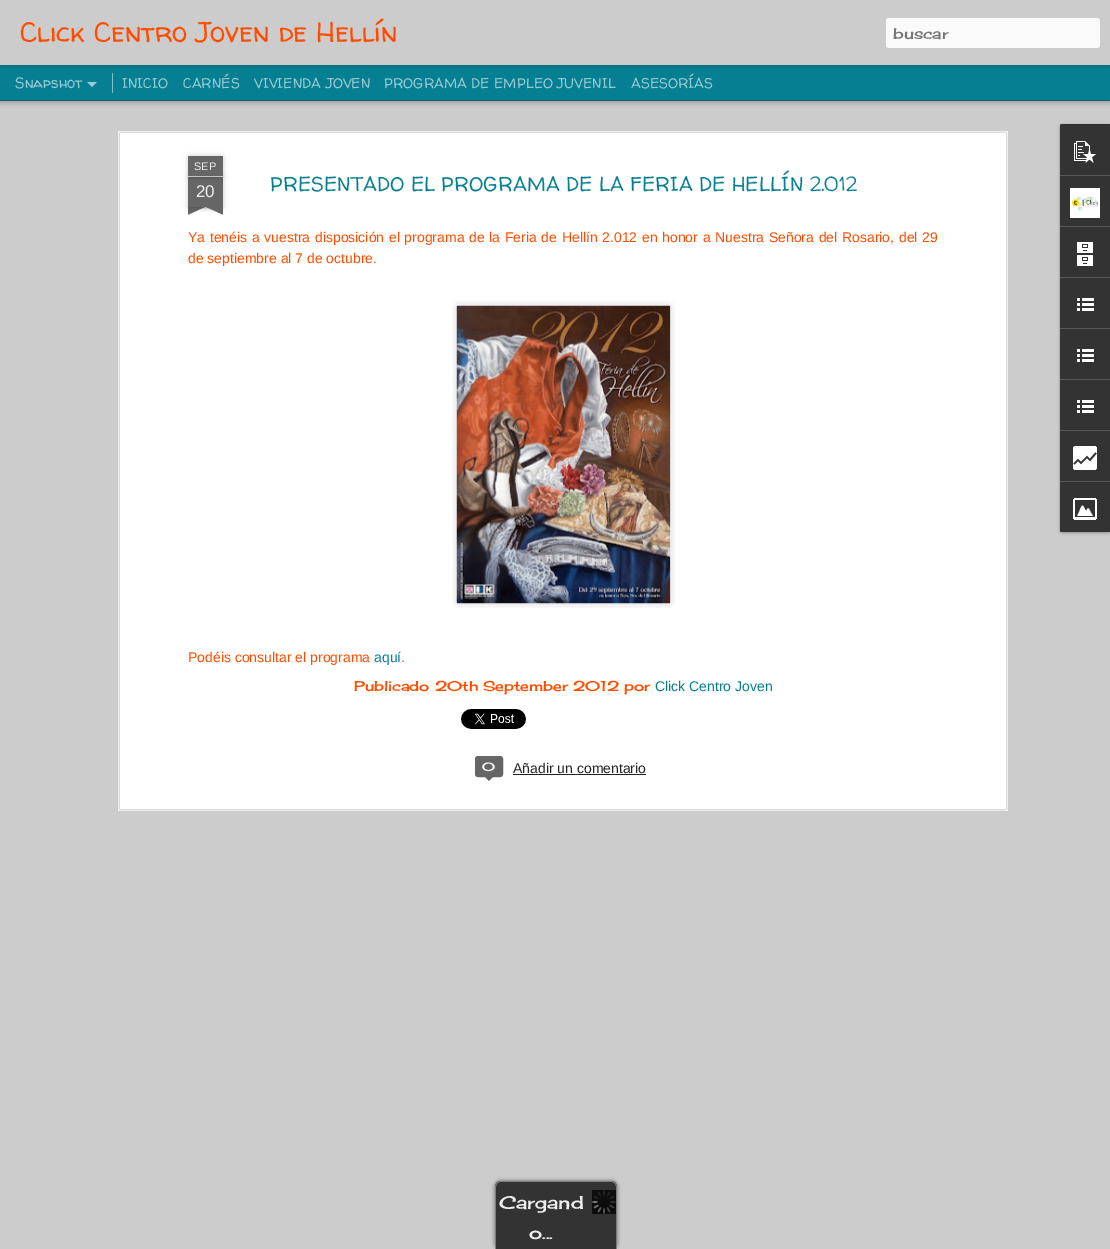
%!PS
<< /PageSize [1110 1249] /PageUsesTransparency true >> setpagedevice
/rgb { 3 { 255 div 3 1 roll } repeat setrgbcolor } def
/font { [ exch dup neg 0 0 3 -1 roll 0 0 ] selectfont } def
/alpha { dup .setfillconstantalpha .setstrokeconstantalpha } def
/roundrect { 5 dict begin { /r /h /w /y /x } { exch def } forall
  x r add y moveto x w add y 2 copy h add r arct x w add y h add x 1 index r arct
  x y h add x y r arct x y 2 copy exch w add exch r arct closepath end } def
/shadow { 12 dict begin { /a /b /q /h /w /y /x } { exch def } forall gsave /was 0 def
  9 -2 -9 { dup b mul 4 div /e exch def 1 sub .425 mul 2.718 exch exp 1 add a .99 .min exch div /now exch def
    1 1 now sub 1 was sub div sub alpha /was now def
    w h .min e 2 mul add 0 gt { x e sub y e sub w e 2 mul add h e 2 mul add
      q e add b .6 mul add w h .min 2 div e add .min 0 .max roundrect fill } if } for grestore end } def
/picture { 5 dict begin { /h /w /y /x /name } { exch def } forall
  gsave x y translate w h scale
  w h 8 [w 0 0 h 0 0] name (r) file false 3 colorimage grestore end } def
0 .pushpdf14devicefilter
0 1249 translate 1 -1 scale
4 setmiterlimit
6 127 146 rgb
0 0 1110 1249 rectfill
204 204 204 rgb
0 101 1110 1148 rectfill
0 0 0 rgb
0 65 1110 35 0 4 0.5 shadow
6 127 146 rgb
0 65 1110 35 rectfill
131 191 201 rgb
112 73 1 20 rectfill
0 0 0 rgb
0 0 1110 65 0 2.5 0.3 shadow
204 204 204 rgb
0 0 1110 65 rectfill
250 250 250 rgb
886 18 214 30 3 roundrect fill
155 204 211 rgb
87 82 moveto 97 82 lineto 92 87 lineto closepath fill
255 255 255 rgb
118 131 890 680 rectfill
(img/1.rgb) 118 131 890 680 picture
0 0 0 rgb
188 177 35 30 0 2.5 0.2 shadow
102 102 102 rgb
188 177 35 30 rectfill
0 0 0 rgb
188 156 35 21 1 2.5 0.2 shadow
102 102 102 rgb
189 156 moveto 222 156 lineto 222.5 156 223 156.5 223 157 curveto 223 177 lineto 188 177 lineto 188 157 lineto 188 156.5 188.5 156 189 156 curveto closepath fill
194 194 194 rgb
188 176 35 1 rectfill
gsave
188 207 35 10 rectclip
0 0 0 rgb
179 197 50 10 0 2.5 0.2 shadow
grestore
gsave
188 207 35 10 rectclip
102 102 102 rgb
179 208 moveto 225 187 lineto 229 196 lineto 183 217 lineto closepath fill
grestore
gsave
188 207 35 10 rectclip
0 0 0 rgb
182 197 50 10 0 2.5 0.2 shadow
grestore
gsave
188 207 35 10 rectclip
102 102 102 rgb
186 187 moveto 232 208 lineto 228 217 lineto 182 196 lineto closepath fill
grestore
(img/2.rgb) 452 301 223 307 picture
(img/3.rgb) 456 305 215 299 picture
(img/4.rgb) 461 709 65 20 picture
102 102 102 rgb
475.5 756.5 27 20 2.5 roundrect gsave fill grestore
stroke
484 776 moveto 494 776 lineto 489 781 lineto closepath fill
34 34 34 rgb
513 774 133 1 rectfill
0 0 0 rgb
1060 125 50 408 2 1.5 0.3 shadow
51 51 51 rgb
1062 124 moveto 1110 124 lineto 1110 532 lineto 1062 532 lineto 1061 532 1060 531 1060 530 curveto 1060 126 lineto 1060 125 1061 124 1062 124 curveto closepath fill
1062 124 moveto 1110 124 lineto 1110 175 lineto 1060 175 lineto 1060 126 lineto 1060 125 1061 124 1062 124 curveto closepath fill
(img/5.rgb) 1074 141 22 22 picture
88 88 88 rgb
1060 175 50 1 rectfill
(img/6.rgb) 1070 188 30 30 picture
1060 226 50 1 rectfill
(img/7.rgb) 1077 242 16 24 picture
1060 277 50 1 rectfill
(img/8.rgb) 1077 298 17 13 picture
1060 328 50 1 rectfill
(img/8.rgb) 1077 349 17 13 picture
1060 379 50 1 rectfill
(img/8.rgb) 1077 400 17 13 picture
1060 430 50 1 rectfill
(img/9.rgb) 1073 446 24 24 picture
51 51 51 rgb
1060 481 moveto 1110 481 lineto 1110 532 lineto 1062 532 lineto 1061 532 1060 531 1060 530 curveto closepath fill
88 88 88 rgb
1060 481 50 1 rectfill
(img/10.rgb) 1073 498 24 22 picture
89 89 89 rgb
495 1181 122 68 6 2 1 shadow
51 51 51 rgb
501 1181 moveto 611 1181 lineto 614.5 1181 617 1183.5 617 1187 curveto 617 1249 lineto 495 1249 lineto 495 1187 lineto 495 1183.5 497.5 1181 501 1181 curveto closepath fill
128 128 128 rgb
501 1181 moveto 611 1181 lineto 614 1181 617 1184 617 1187 curveto 617 1249 lineto 495 1249 lineto 495 1187 lineto 495 1184 498 1181 501 1181 curveto closepath 501 1182 moveto 611 1182 lineto 614 1182 616 1184 616 1187 curveto 616 1249 lineto 496 1249 lineto 496 1187 lineto 496 1184 498 1182 501 1182 curveto closepath eofill
(img/11.rgb) 592 1190 24 24 picture
/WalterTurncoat-Regular 28 font
255 76 0 rgb
20 42 moveto (Click Centro Joven de Hellín) show
/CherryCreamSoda-Regular 15 font
117 117 117 rgb
893 39 moveto (buscar) show
/WalterTurncoat-Regular 15 font
155 204 211 rgb
15 88 moveto (Snapshot) show
/WalterTurncoat-Regular 14 font
[
  [(INICIO) 122 88]
  [(CARNÉS) 183 88]
  [(VIVIENDA JOVEN) 254 88]
  [(PROGRAMA DE EMPLEO JUVENIL) 384 88]
  [(ASESORÍAS) 631 88]
] { aload pop moveto show } forall
/LiberationSans-Regular 11 font
238 238 238 rgb
194 170 moveto (SEP) show
/LiberationSans-Regular 17 font
196 197 moveto (20) show
/WalterTurncoat-Regular 20 font
6 127 146 rgb
270 191 moveto (PRESENTADO EL PROGRAMA DE LA FERIA DE HELLÍN 2.012) show
/LiberationSans-Regular 14 font
255 76 0 rgb
188 242 moveto 0.8 0 32 (Ya tenéis a vuestra disposición el programa de la Feria de Hellín 2.012 en honor a Nuestra Señora del Rosario, del 29) widthshow
188 263 moveto (de septiembre al 7 de octubre.) show
188 662 moveto (Podéis consultar el programa) show
6 127 146 rgb
374 662 moveto (aquí) show
255 76 0 rgb
401 662 moveto (.) show
/CherryCreamSoda-Regular 14 font
354 691 moveto (Publicado 20th September 2012 por) show
/LiberationSans-Regular 14 font
6 127 146 rgb
655 691 moveto (Click Centro Joven) show
/CherryCreamSoda-Regular 12 font
255 255 255 rgb
482 771 moveto (0) show
/LiberationSans-Regular 14 font
34 34 34 rgb
513 773 moveto (Añadir un comentario) show
/CherryCreamSoda-Regular 18 font
238 238 238 rgb
499 1209 moveto (Cargand) show
529 1239 moveto (o...) show
.poppdf14devicefilter showpage
